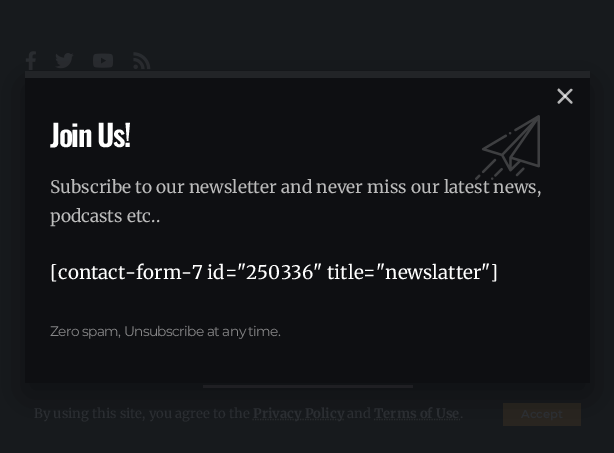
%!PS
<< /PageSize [614 453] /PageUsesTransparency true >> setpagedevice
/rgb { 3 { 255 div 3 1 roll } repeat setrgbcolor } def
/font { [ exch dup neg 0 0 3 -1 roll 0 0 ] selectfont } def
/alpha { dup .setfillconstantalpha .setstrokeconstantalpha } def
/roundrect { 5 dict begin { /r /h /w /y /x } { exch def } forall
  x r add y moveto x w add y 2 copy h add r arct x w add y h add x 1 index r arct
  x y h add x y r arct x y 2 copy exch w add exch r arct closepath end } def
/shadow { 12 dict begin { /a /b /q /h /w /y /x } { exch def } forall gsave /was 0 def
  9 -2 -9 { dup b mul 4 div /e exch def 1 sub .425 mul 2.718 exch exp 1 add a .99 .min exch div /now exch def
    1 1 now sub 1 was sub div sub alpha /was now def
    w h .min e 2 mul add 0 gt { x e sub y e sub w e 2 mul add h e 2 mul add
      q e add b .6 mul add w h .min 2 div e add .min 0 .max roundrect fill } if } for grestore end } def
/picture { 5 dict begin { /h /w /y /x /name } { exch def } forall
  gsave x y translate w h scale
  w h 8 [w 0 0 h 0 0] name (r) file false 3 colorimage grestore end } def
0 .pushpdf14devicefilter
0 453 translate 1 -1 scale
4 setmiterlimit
23 26 29 rgb
0 0 614 453 rectfill
(img/2.rgb) 25 51 11 19 picture
(img/3.rgb) 55 53 19 16 picture
(img/4.rgb) 93 53 21 15 picture
(img/5.rgb) 133 52 18 18 picture
43 46 50 rgb
203 385 210 3 rectfill
1.2 setlinewidth
[1.25 1.25] 0 setdash
252.5 419.5 moveto 344.5 419.5 lineto stroke
374 419.5 moveto 460 419.5 lineto stroke
43 38 33 rgb
503 403 78 23 rectfill
0 0 0 rgb
25 84 565 311 0 19 0.4 shadow
14 15 18 rgb
25 78 565 305 rectfill
183 183 184 rgb
559.5 89 moveto 572.5 102 lineto 572.5 103 572 104 571 103.5 curveto 558 91 lineto 557 89.5 558.5 88 559.5 89 curveto closepath fill
0.7 alpha
255 255 255 rgb
558 101.5 moveto 570.5 89 lineto 571.5 88.5 572.5 89.5 572.5 90 curveto 559.5 103.5 lineto 558.5 104.5 557 102.5 558 101.5 curveto closepath fill
1 alpha
34 36 39 rgb
25 71 565 7 rectfill
/Oswald-SemiBold 30 font
255 255 255 rgb
50 147 moveto -1.5 0 (Join Us!) ashow
/Merriweather-Regular 17.25 font
187 187 187 rgb
50 193 moveto (Subscribe to our newsletter and never miss our latest news,) show
(img/1.rgb) 475 115 65 65 picture
50 222 moveto (podcasts etc..) show
/Merriweather-Regular 18.75 font
255 255 255 rgb
50 279 moveto ([contact-form-7 id="250336" title="newslatter"]) show
/Montserrat-Regular 13.75 font
135 135 136 rgb
50 336 moveto -0.6 0 (Zero spam, Unsubscribe at any time.) ashow
/Merriweather-Regular 13.1 font
43 46 50 rgb
34 418 moveto (By using this site, you agree to the) show
/Merriweather-Bold 13.1 font
253 418 moveto (Privacy Policy) show
/Merriweather-Regular 13.1 font
347 418 moveto (and) show
/Merriweather-Bold 13.1 font
374 418 moveto (Terms of Use) show
/Merriweather-Regular 13.1 font
460 418 moveto (.) show
/Montserrat-SemiBold 11.5 font
521 418 moveto (Accept) show
.poppdf14devicefilter showpage
